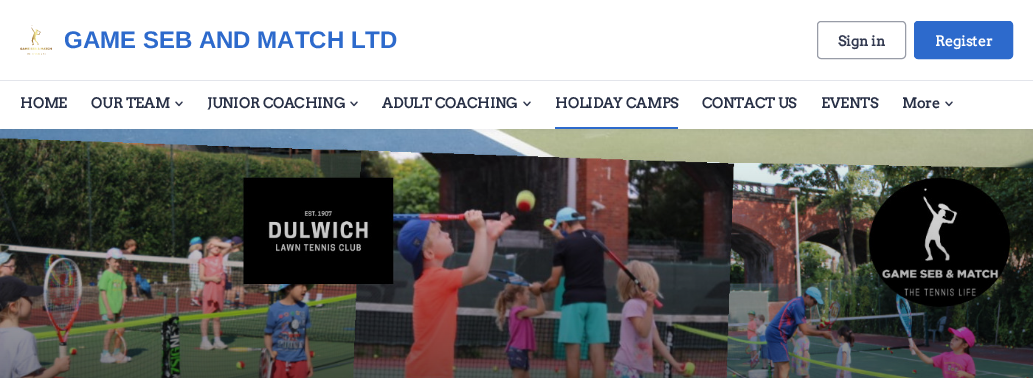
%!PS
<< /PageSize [1033 378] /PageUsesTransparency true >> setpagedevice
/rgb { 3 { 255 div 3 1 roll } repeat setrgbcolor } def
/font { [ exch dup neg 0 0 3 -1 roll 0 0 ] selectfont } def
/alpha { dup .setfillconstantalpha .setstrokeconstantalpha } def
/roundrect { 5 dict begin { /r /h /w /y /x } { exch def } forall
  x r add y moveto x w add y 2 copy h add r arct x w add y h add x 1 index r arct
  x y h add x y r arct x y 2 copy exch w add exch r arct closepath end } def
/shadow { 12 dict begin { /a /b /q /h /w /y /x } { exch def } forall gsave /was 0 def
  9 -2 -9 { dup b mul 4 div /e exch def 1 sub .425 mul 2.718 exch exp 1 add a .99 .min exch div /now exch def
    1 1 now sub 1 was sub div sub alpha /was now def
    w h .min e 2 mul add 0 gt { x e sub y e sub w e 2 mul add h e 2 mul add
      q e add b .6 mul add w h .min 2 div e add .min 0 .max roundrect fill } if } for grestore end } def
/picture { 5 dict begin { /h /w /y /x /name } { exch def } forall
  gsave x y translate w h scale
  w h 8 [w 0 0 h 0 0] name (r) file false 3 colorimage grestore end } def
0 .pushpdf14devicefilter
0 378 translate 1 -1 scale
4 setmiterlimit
255 255 255 rgb
0 0 1033 378 rectfill
(img/3.rgb) 0 129 1033 249 picture
20 29 55 rgb
0 2 1033 129 0 3 0.06 shadow
255 255 255 rgb
0 0 1033 129 rectfill
(img/1.rgb) 20 25 32 30 picture
152 156 167 rgb
817.5 21.5 88 37 3.5 roundrect stroke
45 106 204 rgb
914.5 21.5 98 37 3.5 roundrect gsave fill grestore
stroke
227 229 235 rgb
0 80 1033 1 rectfill
(img/2.rgb) 175 101 8 6 picture
(img/2.rgb) 350 101 8 6 picture
(img/2.rgb) 523 101 8 6 picture
45 106 204 rgb
555 127 123 2 rectfill
(img/2.rgb) 945 101 8 6 picture
/LiberationSans-Bold 24 font
64 48 moveto (GAME SEB AND MATCH LTD) show
/Arvo-Bold 14 font
50 57 80 rgb
838 46 moveto (Sign in) show
255 255 255 rgb
935 46 moveto (Register) show
39 47 69 rgb
[
  [(HOME) 20 108]
  [(OUR TEAM) 91 108]
  [(JUNIOR COACHING) 207 108]
  [(ADULT COACHING) 382 108]
  [(HOLIDAY CAMPS) 555 108]
  [(CONTACT US) 702 108]
  [(EVENTS) 821 108]
  [(More) 902 108]
] { aload pop moveto show } forall
.poppdf14devicefilter showpage
